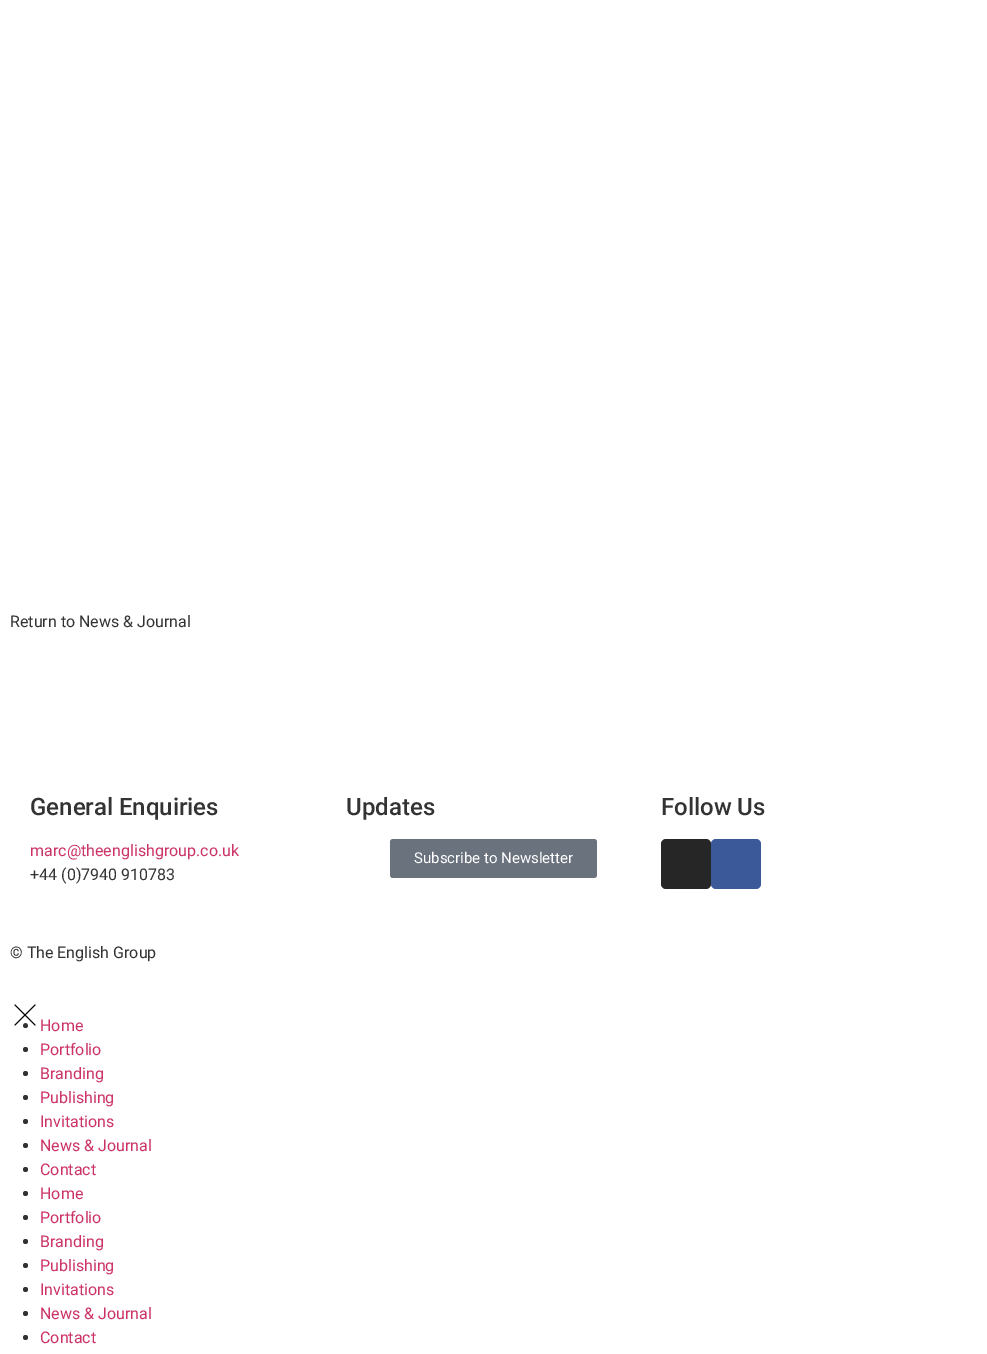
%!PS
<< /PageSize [987 1354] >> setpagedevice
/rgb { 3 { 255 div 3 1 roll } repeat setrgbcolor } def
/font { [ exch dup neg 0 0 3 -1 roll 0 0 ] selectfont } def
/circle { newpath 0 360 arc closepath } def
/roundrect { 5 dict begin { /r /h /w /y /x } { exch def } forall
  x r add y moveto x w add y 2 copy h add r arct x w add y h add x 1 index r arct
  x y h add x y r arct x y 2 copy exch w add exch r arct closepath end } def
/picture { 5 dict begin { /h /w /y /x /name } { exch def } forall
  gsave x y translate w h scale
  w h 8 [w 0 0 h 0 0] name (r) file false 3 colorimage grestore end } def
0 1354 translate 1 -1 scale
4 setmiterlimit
255 255 255 rgb
0 0 987 1354 rectfill
105 114 125 rgb
390 839 207 39 3 roundrect fill
38 38 38 rgb
661 839 50 50 5 roundrect fill
59 89 152 rgb
711 839 50 50 5 roundrect fill
51 51 51 rgb
25.5 1025.5 2.5 circle fill
(img/1.rgb) 14 1004 22 22 picture
25.5 1049.5 2.5 circle fill
25.5 1073.5 2.5 circle fill
25.5 1097.5 2.5 circle fill
25.5 1121.5 2.5 circle fill
25.5 1145.5 2.5 circle fill
25.5 1169.5 2.5 circle fill
25.5 1193.5 2.5 circle fill
25.5 1217.5 2.5 circle fill
25.5 1241.5 2.5 circle fill
25.5 1265.5 2.5 circle fill
25.5 1289.5 2.5 circle fill
25.5 1313.5 2.5 circle fill
25.5 1337.5 2.5 circle fill
/Roboto-Regular 16 font
10 627 moveto (Return to News & Journal) show
/Roboto-Medium 24 font
30 815 moveto (General Enquiries) show
/Roboto-Regular 16 font
204 51 102 rgb
30 856 moveto (marc@theenglishgroup.co.uk) show
51 51 51 rgb
30 880 moveto (+44 \(0\)7940 910783) show
/Roboto-Medium 24 font
346 815 moveto (Updates) show
/Roboto-Regular 15 font
255 255 255 rgb
414 863 moveto (Subscribe to Newsletter) show
/Roboto-Medium 24 font
51 51 51 rgb
661 815 moveto (Follow Us) show
/Roboto-Regular 16 font
10 958 moveto (© The English Group) show
204 51 102 rgb
[
  [(Home) 40 1031]
  [(Portfolio) 40 1055]
  [(Branding) 40 1079]
  [(Publishing) 40 1103]
  [(Invitations) 40 1127]
  [(News & Journal) 40 1151]
  [(Contact) 40 1175]
  [(Home) 40 1199]
  [(Portfolio) 40 1223]
  [(Branding) 40 1247]
  [(Publishing) 40 1271]
  [(Invitations) 40 1295]
  [(News & Journal) 40 1319]
  [(Contact) 40 1343]
] { aload pop moveto show } forall
showpage
